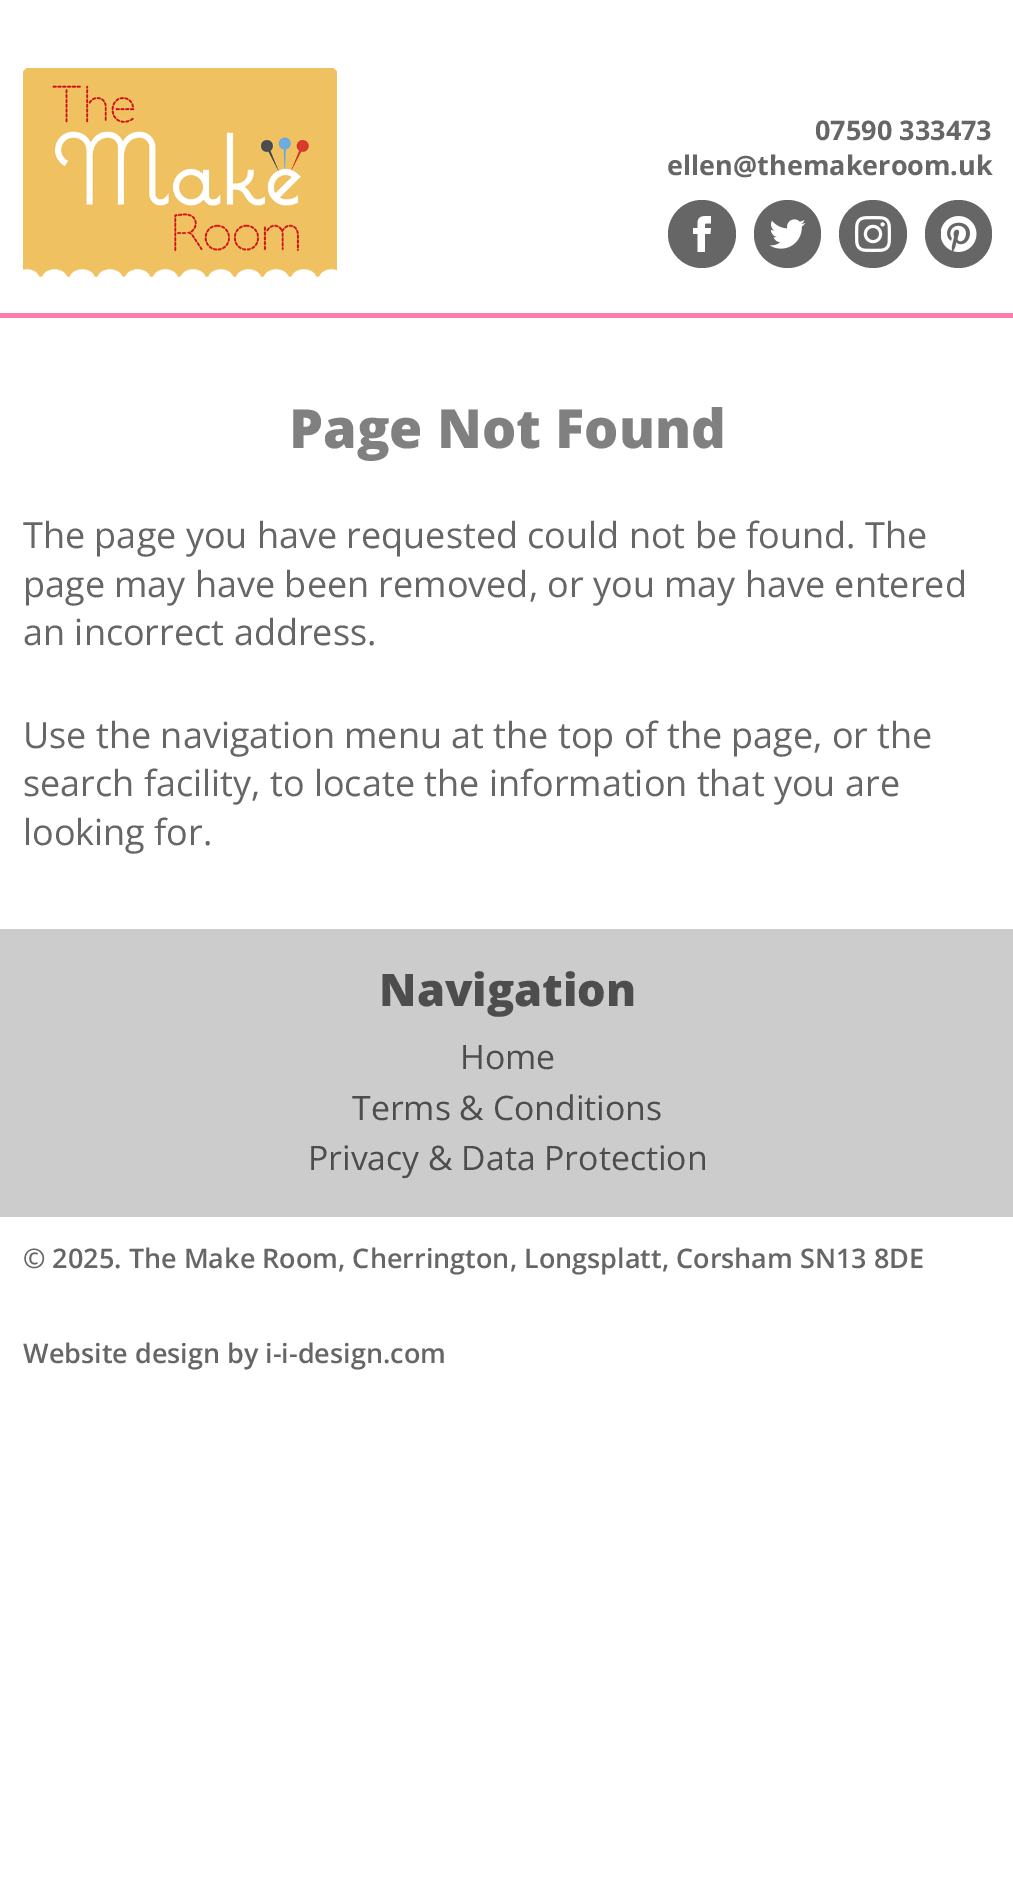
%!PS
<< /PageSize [1013 1880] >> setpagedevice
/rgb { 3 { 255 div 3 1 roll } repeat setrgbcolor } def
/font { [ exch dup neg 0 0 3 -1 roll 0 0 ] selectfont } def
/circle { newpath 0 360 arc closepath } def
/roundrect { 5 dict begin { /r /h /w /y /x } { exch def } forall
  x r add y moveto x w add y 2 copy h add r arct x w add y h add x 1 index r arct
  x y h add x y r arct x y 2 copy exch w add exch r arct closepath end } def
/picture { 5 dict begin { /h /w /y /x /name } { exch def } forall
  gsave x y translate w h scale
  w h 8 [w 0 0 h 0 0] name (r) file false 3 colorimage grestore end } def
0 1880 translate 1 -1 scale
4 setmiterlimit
255 255 255 rgb
0 0 1013 1880 rectfill
255 123 172 rgb
0 313 1013 5 rectfill
(img/1.rgb) 23 68 314 209 picture
102 102 102 rgb
702 234 34 circle fill
(img/2.rgb) 693 216 18 36 picture
754 200 67 68 33.5 roundrect fill
(img/3.rgb) 770 219 36 30 picture
873 234 34 circle fill
(img/4.rgb) 855 216 36 36 picture
925 200 67 68 33.5 roundrect fill
(img/5.rgb) 941 216 36 36 picture
204 204 204 rgb
0 929 1013 288 rectfill
/OpenSans-Bold 27 font
102 102 102 rgb
815 140 moveto (07590 333473) show
667 175 moveto (ellen@themakeroom.uk) show
/OpenSans-ExtraBold 54 font
128 128 128 rgb
289 448 moveto (Page Not Found) show
/OpenSans-Regular 36 font
102 102 102 rgb
[
  [(The page you have requested could not be found. The) 23 548]
  [(page may have been removed, or you may have entered) 23 597]
  [(an incorrect address.) 23 645]
  [(Use the navigation menu at the top of the page, or the) 23 748]
  [(search facility, to locate the information that you are) 23 796]
  [(looking for.) 23 845]
] { aload pop moveto show } forall
/OpenSans-ExtraBold 45 font
77 77 77 rgb
379 1006 moveto (Navigation) show
/OpenSans-Regular 33.75 font
[
  [(Home) 460 1069]
  [(Terms & Conditions) 352 1120]
  [(Privacy & Data Protection) 308 1170]
] { aload pop moveto show } forall
/OpenSans-SemiBold 27 font
102 102 102 rgb
23 1268 moveto (© 2025. The Make Room, Cherrington, Longsplatt, Corsham SN13 8DE) show
23 1363 moveto (Website design by i-i-design.com) show
showpage
